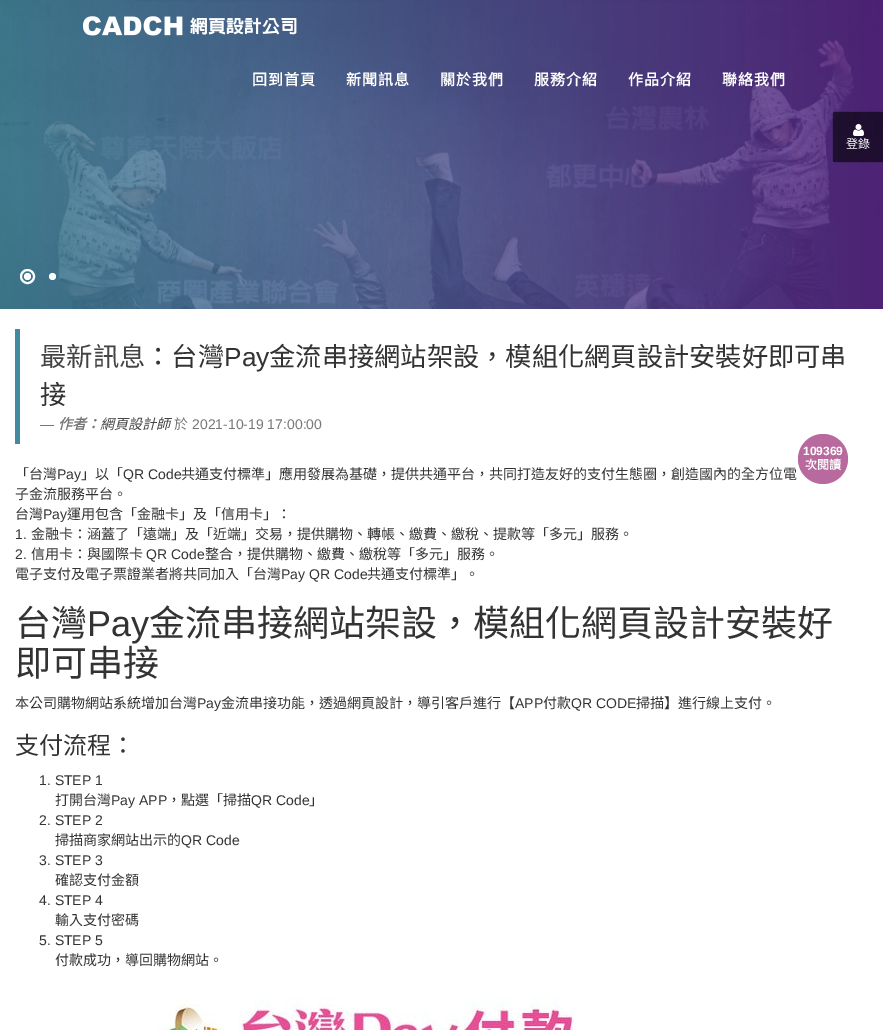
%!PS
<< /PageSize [883 1030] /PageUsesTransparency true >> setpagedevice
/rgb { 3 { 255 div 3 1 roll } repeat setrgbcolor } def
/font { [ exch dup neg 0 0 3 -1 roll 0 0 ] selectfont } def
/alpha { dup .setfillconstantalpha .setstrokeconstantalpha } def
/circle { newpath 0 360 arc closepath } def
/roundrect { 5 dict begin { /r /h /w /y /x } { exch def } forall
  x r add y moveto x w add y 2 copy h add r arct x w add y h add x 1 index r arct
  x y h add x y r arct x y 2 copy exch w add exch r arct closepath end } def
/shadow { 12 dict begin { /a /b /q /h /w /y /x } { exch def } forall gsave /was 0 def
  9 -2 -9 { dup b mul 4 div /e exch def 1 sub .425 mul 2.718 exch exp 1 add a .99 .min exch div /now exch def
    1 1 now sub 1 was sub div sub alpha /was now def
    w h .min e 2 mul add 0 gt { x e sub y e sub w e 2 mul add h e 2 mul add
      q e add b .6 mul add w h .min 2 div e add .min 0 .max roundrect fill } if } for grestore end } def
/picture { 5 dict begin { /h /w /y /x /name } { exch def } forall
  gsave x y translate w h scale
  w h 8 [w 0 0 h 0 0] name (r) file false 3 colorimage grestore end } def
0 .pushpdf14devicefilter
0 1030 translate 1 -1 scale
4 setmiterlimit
255 255 255 rgb
0 0 883 1030 rectfill
(img/1.rgb) 0 0 883 309 picture
2 setlinewidth
27.5 276.5 6.5 circle stroke
27.5 276.5 3.5 circle fill
52.5 276.5 3.5 circle fill
(img/2.rgb) 83 16 214 20 picture
gsave
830 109 moveto 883 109 lineto 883 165 lineto 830 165 lineto closepath 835 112 moveto 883 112 lineto 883 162 lineto 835 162 lineto 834 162 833 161 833 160 curveto 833 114 lineto 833 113 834 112 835 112 curveto closepath eoclip newpath
0 0 0 rgb
833 112 50 50 2 0.5 0.4 shadow
grestore
0.6 alpha
0 0 0 rgb
835 112 moveto 883 112 lineto 883 162 lineto 835 162 lineto 834 162 833 161 833 160 curveto 833 114 lineto 833 113 834 112 835 112 curveto closepath fill
1 alpha
(img/3.rgb) 853 124 11 12 picture
67 137 162 rgb
15 329 5 115 rectfill
184 106 158 rgb
823 459 25 circle fill
(img/4.rgb) 159 996 416 34 picture
/NotoSansCJKTC-Bold 15 font
255 255 255 rgb
252 85 moveto 1 0 (回到首頁) ashow
346 85 moveto 1 0 (新聞訊息) ashow
440 85 moveto 1 0 (關於我們) ashow
534 85 moveto 1 0 (服務介紹) ashow
628 85 moveto 1 0 (作品介紹) ashow
722 85 moveto 1 0 (聯絡我們) ashow
/NotoSansCJKTC-Regular 12 font
846 148 moveto (登錄) show
/NotoSansCJKTC-Regular 26.25 font
68 68 68 rgb
40 366 moveto (最新訊息) show
51 51 51 rgb
145 366 moveto (：台灣) show
/LiberationSans-Regular 26.25 font
224 366 moveto (Pay) show
/NotoSansCJKTC-Regular 26.25 font
269 366 moveto (金流串接網站架設，模組化網頁設計安裝好即可串) show
40 404 moveto (接) show
/LiberationSans-Regular 14 font
119 119 119 rgb
40 429 moveto (—) show
/NotoSansCJKTC-BoldItalic 14 font
58 429 moveto (作者：) show
/NotoSansCJKTC-Italic 14 font
68 68 68 rgb
100 429 moveto (網頁設計師) show
/NotoSansCJKTC-Regular 14 font
119 119 119 rgb
174 429 moveto (於) show
/LiberationSans-Regular 14 font
192 429 moveto (2021-10-19 17:00:00) show
/LiberationSans-Bold 12 font
255 255 255 rgb
803 455 moveto (109369) show
/NotoSansCJKTC-Bold 12 font
805 469 moveto (次閱讀) show
/NotoSansCJKTC-Regular 14 font
51 51 51 rgb
15 479 moveto (「台灣) show
/LiberationSans-Regular 14 font
57 479 moveto (Pay) show
/NotoSansCJKTC-Regular 14 font
81 479 moveto (」以「) show
/LiberationSans-Regular 14 font
123 479 moveto (QR Code) show
/NotoSansCJKTC-Regular 14 font
[
  [(共通支付標準」應用發展為基礎，提供共通平台，共同打造友好的支付生態圈，創造國內的全方位電) 181 479]
  [(子金流服務平台。) 15 499]
  [(台灣) 15 519]
] { aload pop moveto show } forall
/LiberationSans-Regular 14 font
43 519 moveto (Pay) show
/NotoSansCJKTC-Regular 14 font
67 519 moveto (運用包含「金融卡」及「信用卡」：) show
/LiberationSans-Regular 14 font
15 539 moveto (1.) show
/NotoSansCJKTC-Regular 14 font
31 539 moveto (金融卡：涵蓋了「遠端」及「近端」交易，提供購物、轉帳、繳費、繳稅、提款等「多元」服務。) show
/LiberationSans-Regular 14 font
15 559 moveto (2.) show
/NotoSansCJKTC-Regular 14 font
31 559 moveto (信用卡：與國際卡) show
/LiberationSans-Regular 14 font
146 559 moveto (QR Code) show
/NotoSansCJKTC-Regular 14 font
205 559 moveto (整合，提供購物、繳費、繳稅等「多元」服務。) show
15 579 moveto (電子支付及電子票證業者將共同加入「台灣) show
/LiberationSans-Regular 14 font
281 579 moveto (Pay QR Code) show
/NotoSansCJKTC-Regular 14 font
367 579 moveto (共通支付標準」。) show
/NotoSansCJKTC-Regular 36 font
15 636 moveto (台灣) show
/LiberationSans-Regular 36 font
87 636 moveto (Pay) show
/NotoSansCJKTC-Regular 36 font
149 636 moveto (金流串接網站架設，模組化網頁設計安裝好) show
15 676 moveto (即可串接) show
/NotoSansCJKTC-Regular 14 font
15 708 moveto (本公司購物網站系統增加台灣) show
/LiberationSans-Regular 14 font
197 708 moveto (Pay) show
/NotoSansCJKTC-Regular 14 font
221 708 moveto (金流串接功能，透過網頁設計，導引客戶進行【) show
/LiberationSans-Regular 14 font
515 708 moveto (APP) show
/NotoSansCJKTC-Regular 14 font
543 708 moveto (付款) show
/LiberationSans-Regular 14 font
571 708 moveto (QR CODE) show
/NotoSansCJKTC-Regular 14 font
636 708 moveto (掃描】進行線上支付。) show
/NotoSansCJKTC-Regular 24 font
15 754 moveto (支付流程：) show
/LiberationSans-Regular 14 font
39 785 moveto (1. STEP 1) show
/NotoSansCJKTC-Regular 14 font
55 805 moveto (打開台灣) show
/LiberationSans-Regular 14 font
111 805 moveto (Pay APP) show
/NotoSansCJKTC-Regular 14 font
167 805 moveto (，點選「掃描) show
/LiberationSans-Regular 14 font
251 805 moveto (QR Code) show
/NotoSansCJKTC-Regular 14 font
309 805 moveto (」) show
/LiberationSans-Regular 14 font
39 825 moveto (2. STEP 2) show
/NotoSansCJKTC-Regular 14 font
55 845 moveto (掃描商家網站出示的) show
/LiberationSans-Regular 14 font
181 845 moveto (QR Code) show
39 865 moveto (3. STEP 3) show
/NotoSansCJKTC-Regular 14 font
55 885 moveto (確認支付金額) show
/LiberationSans-Regular 14 font
39 905 moveto (4. STEP 4) show
/NotoSansCJKTC-Regular 14 font
55 925 moveto (輸入支付密碼) show
/LiberationSans-Regular 14 font
39 945 moveto (5. STEP 5) show
/NotoSansCJKTC-Regular 14 font
55 965 moveto (付款成功，導回購物網站。) show
.poppdf14devicefilter showpage
